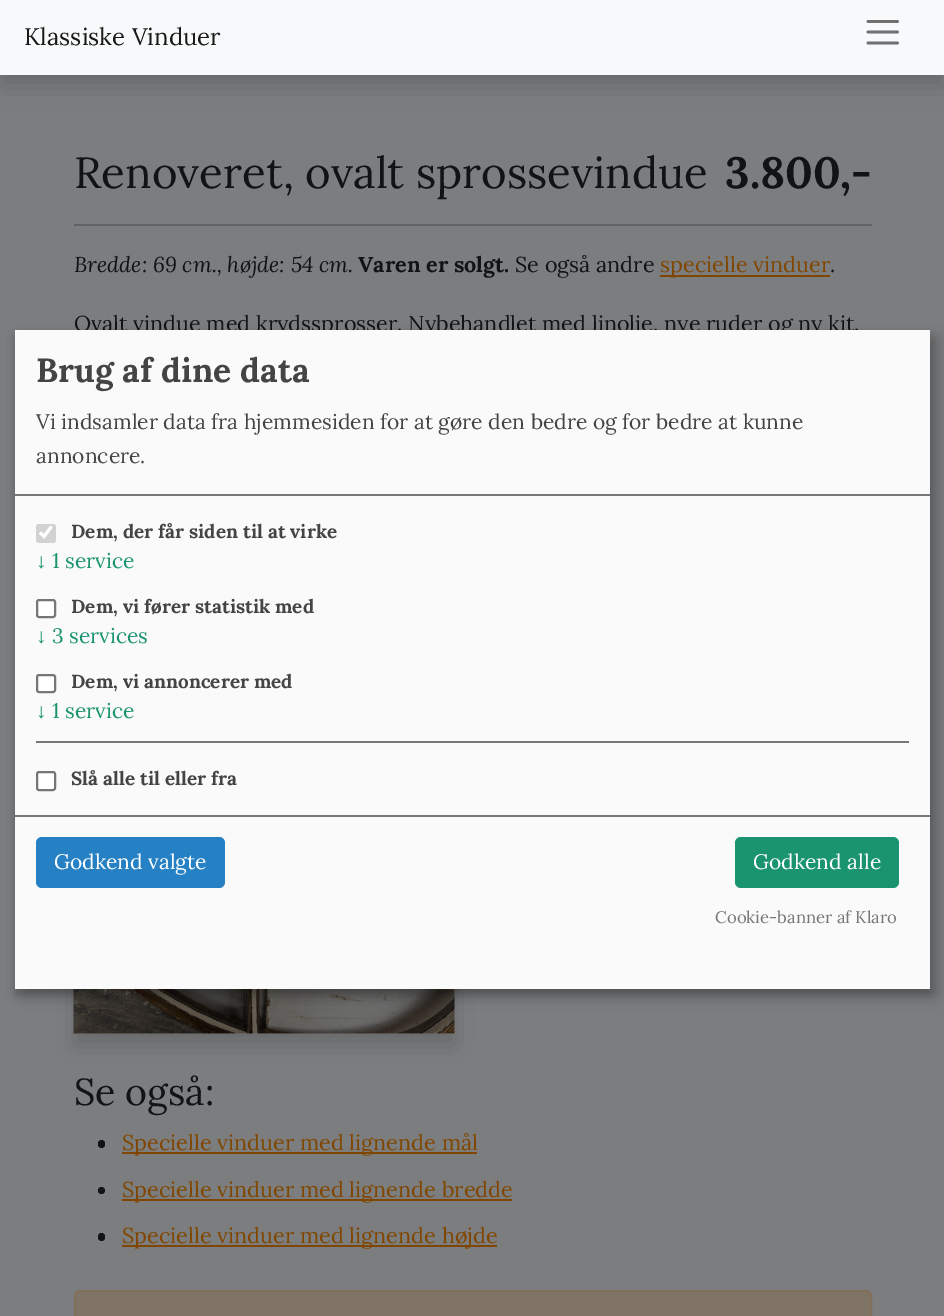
%!PS
<< /PageSize [944 1316] /PageUsesTransparency true >> setpagedevice
/rgb { 3 { 255 div 3 1 roll } repeat setrgbcolor } def
/font { [ exch dup neg 0 0 3 -1 roll 0 0 ] selectfont } def
/alpha { dup .setfillconstantalpha .setstrokeconstantalpha } def
/circle { newpath 0 360 arc closepath } def
/roundrect { 5 dict begin { /r /h /w /y /x } { exch def } forall
  x r add y moveto x w add y 2 copy h add r arct x w add y h add x 1 index r arct
  x y h add x y r arct x y 2 copy exch w add exch r arct closepath end } def
/shadow { 12 dict begin { /a /b /q /h /w /y /x } { exch def } forall gsave /was 0 def
  9 -2 -9 { dup b mul 4 div /e exch def 1 sub .425 mul 2.718 exch exp 1 add a .99 .min exch div /now exch def
    1 1 now sub 1 was sub div sub alpha /was now def
    w h .min e 2 mul add 0 gt { x e sub y e sub w e 2 mul add h e 2 mul add
      q e add b .6 mul add w h .min 2 div e add .min 0 .max roundrect fill } if } for grestore end } def
/picture { 5 dict begin { /h /w /y /x /name } { exch def } forall
  gsave x y translate w h scale
  w h 8 [w 0 0 h 0 0] name (r) file false 3 colorimage grestore end } def
0 .pushpdf14devicefilter
0 1316 translate 1 -1 scale
4 setmiterlimit
124 125 126 rgb
0 0 944 1316 rectfill
0 0 0 rgb
0 12 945 75 0 12 0.15 shadow
248 249 250 rgb
0 0 944 75 rectfill
112 112 113 rgb
2.7 setlinewidth
1 setlinecap
868 21.5 moveto 897.5 21.5 lineto 868 32 moveto 897.5 32 lineto 868 43 moveto 897.5 43 lineto stroke
97 99 100 rgb
74 224 798 2 rectfill
128 70 0 rgb
660 275 170 2 rectfill
0 0 0 rgb
74 759 381 287 0 12 0.15 shadow
(img/1.rgb) 73 989 382 45 picture
17 19 21 rgb
98 1140 7 8 3.5 roundrect fill
128 70 0 rgb
122 1152 355 2 rectfill
17 19 21 rgb
101.5 1190.5 3.5 circle fill
128 70 0 rgb
122 1199 390 2 rectfill
17 19 21 rgb
98 1233 7 8 3.5 roundrect fill
128 70 0 rgb
122 1245 375 2 rectfill
128 116 102 rgb
75 1291 796 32 5 roundrect gsave fill grestore
128 111 90 rgb
2 setlinewidth
0 setlinecap
stroke
0 0 0 rgb
23 338 915 658 0 7.5 0.19 shadow
15 336 915 659 0 4.5 0.2 shadow
/Lora-Regular 24 font
25 25 25 rgb
24 45 moveto (Klassiske Vinduer) show
/Lora-Regular 43.75 font
17 19 21 rgb
74 188 moveto (Renoveret, ovalt sprossevindue) show
/Lora-Bold 43.75 font
725 188 moveto (3.800,-) show
/Lora-Italic 21.6 font
74 272 moveto (Bredde: 69 cm., højde: 54 cm.) show
/Lora-Bold 21.6 font
358 272 moveto (Varen er solgt.) show
/Lora-Regular 21.6 font
515 272 moveto (Se også andre) show
128 70 0 rgb
660 272 moveto (specielle vinduer) show
17 19 21 rgb
830 272 moveto (.) show
74 331 moveto (Ovalt vindue med krydssprosser. Nybehandlet med linolie, nye ruder og ny kit.) show
/Lora-Regular 37.5 font
74 1105 moveto (Se også:) show
/Lora-Regular 21.6 font
128 70 0 rgb
[
  [(Specielle vinduer med lignende mål) 122 1150]
  [(Specielle vinduer med lignende bredde) 122 1197]
  [(Specielle vinduer med lignende højde) 122 1243]
] { aload pop moveto show } forall
250 250 250 rgb
15 330 915 659 rectfill
119 119 119 rgb
15 494 915 2 rectfill
/Lora-Bold 33.5 font
68 68 68 rgb
36 382 moveto (Brug af dine data) show
/Lora-Regular 21 font
36 429 moveto (Vi indsamler data fra hjemmesiden for at gøre den bedre og for bedre at kunne) show
36 463 moveto (annoncere.) show
210 210 210 rgb
36 524 20 19 3 roundrect fill
255 255 255 rgb
3.1 setlinewidth
40 532.5 moveto 44 536.5 lineto 51.5 526.5 lineto stroke
/Lora-Bold 18.9 font
68 68 68 rgb
71 538 moveto (Dem, der får siden til at virke) show
/LiberationSerif-Regular 21 font
26 147 111 rgb
36 568 moveto (↓) show
/Lora-Regular 21 font
52 568 moveto (1 service) show
255 255 255 rgb
37 600 18 17 2 roundrect gsave fill grestore
118 118 118 rgb
2 setlinewidth
stroke
/Lora-Bold 18.9 font
68 68 68 rgb
71 613 moveto (Dem, vi fører statistik med) show
/LiberationSerif-Regular 21 font
26 147 111 rgb
36 643 moveto (↓) show
/Lora-Regular 21 font
52 643 moveto (3 services) show
255 255 255 rgb
37 675 18 17 2 roundrect gsave fill grestore
118 118 118 rgb
stroke
/Lora-Bold 18.9 font
68 68 68 rgb
71 688 moveto (Dem, vi annoncerer med) show
/LiberationSerif-Regular 21 font
26 147 111 rgb
36 718 moveto (↓) show
/Lora-Regular 21 font
52 718 moveto (1 service) show
119 119 119 rgb
36 741 873 2 rectfill
255 255 255 rgb
37 772 18 18 2 roundrect gsave fill grestore
118 118 118 rgb
stroke
/Lora-Bold 18.9 font
68 68 68 rgb
71 785 moveto (Slå alle til eller fra) show
119 119 119 rgb
15 815 915 2 rectfill
37 129 196 rgb
36 837 189 51 6 roundrect fill
/Lora-Regular 21 font
255 255 255 rgb
54 869 moveto (Godkend valgte) show
26 147 111 rgb
735 837 164 51 6 roundrect fill
255 255 255 rgb
753 869 moveto (Godkend alle) show
/Lora-Regular 16.75 font
119 119 119 rgb
715 923 moveto (Cookie-banner af Klaro) show
.poppdf14devicefilter showpage
